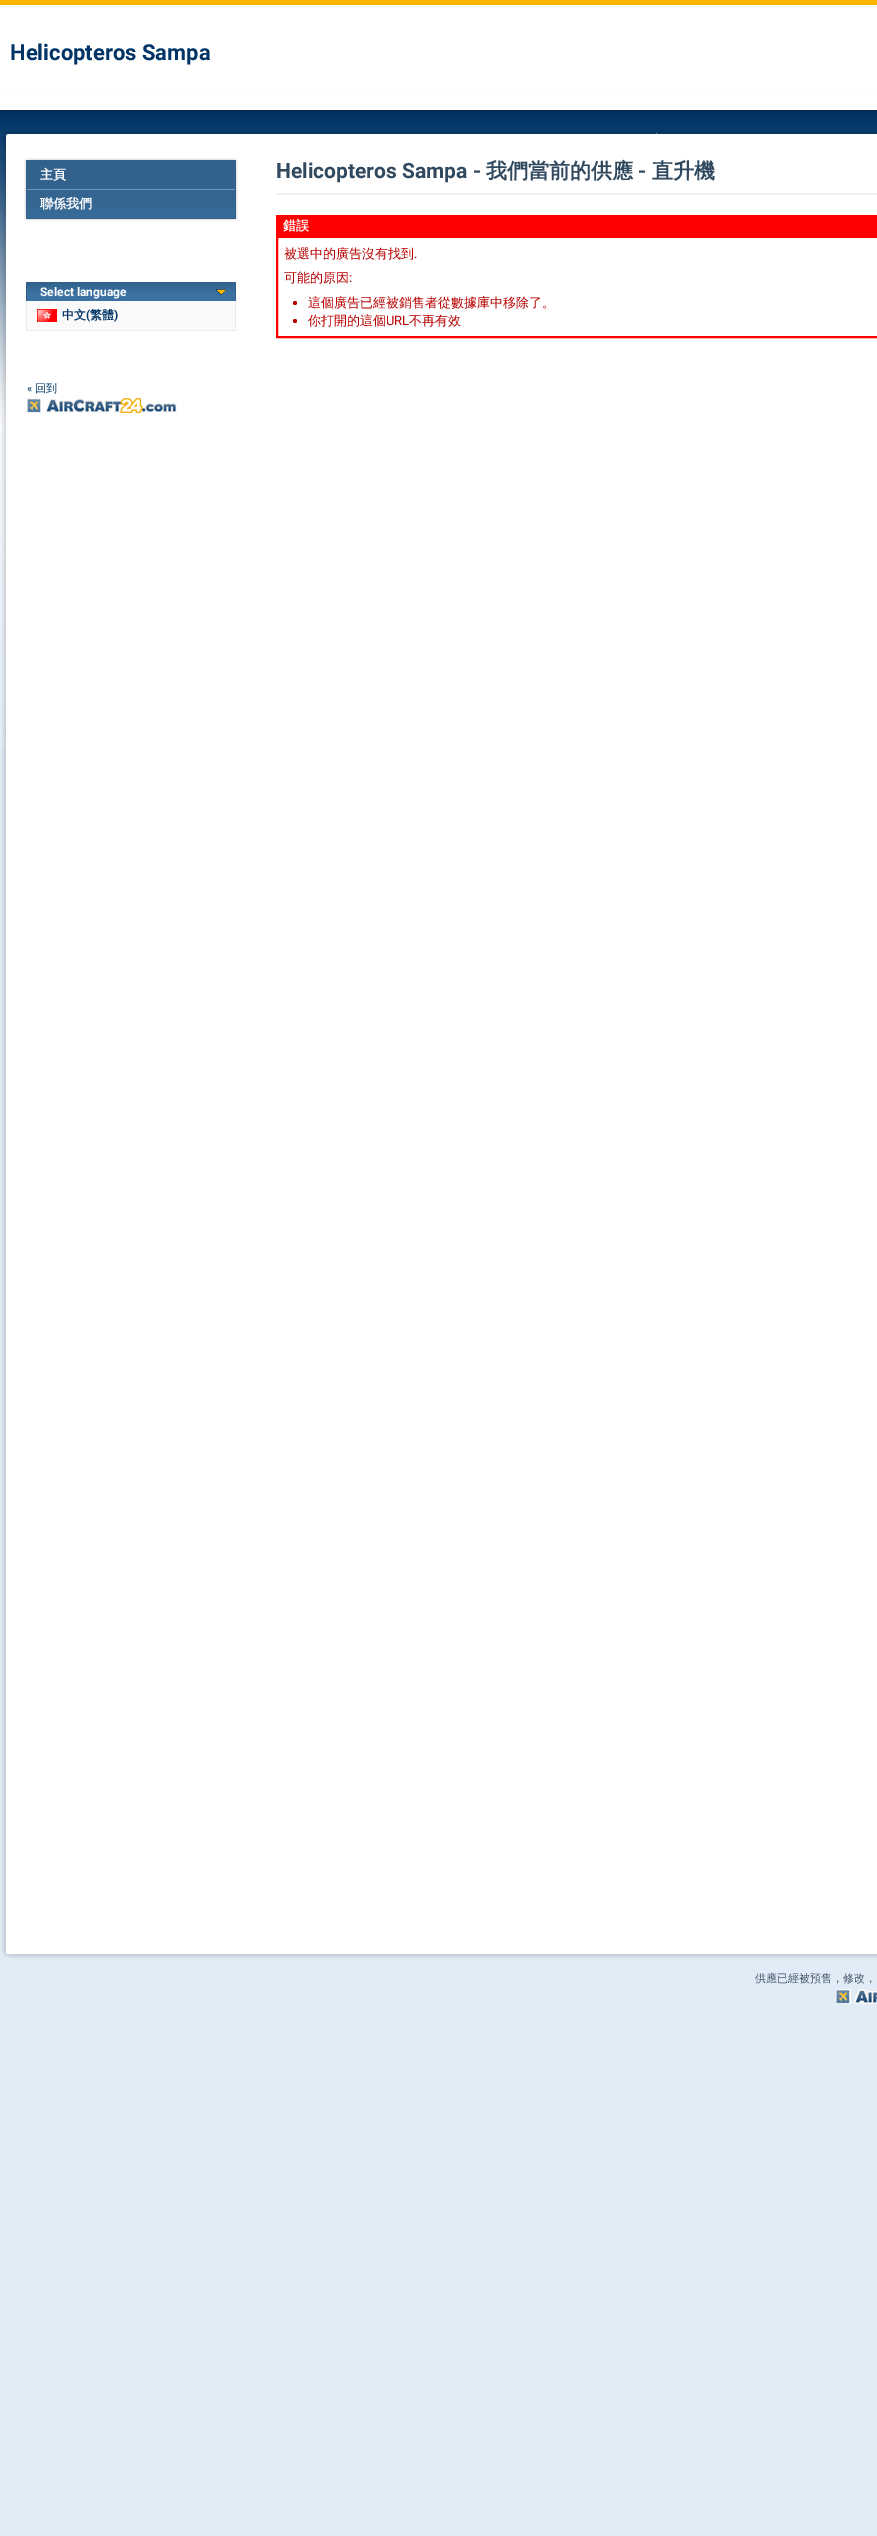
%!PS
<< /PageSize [877 2536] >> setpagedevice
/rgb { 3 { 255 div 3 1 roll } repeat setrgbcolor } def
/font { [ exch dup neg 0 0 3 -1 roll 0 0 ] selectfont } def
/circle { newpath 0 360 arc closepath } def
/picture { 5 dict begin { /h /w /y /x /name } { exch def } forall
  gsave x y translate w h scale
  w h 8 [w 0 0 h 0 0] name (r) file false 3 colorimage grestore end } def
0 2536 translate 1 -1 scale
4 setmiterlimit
225 236 247 rgb
0 0 877 2536 rectfill
(img/1.rgb) 0 0 877 747 picture
255 255 255 rgb
0 91 877 18 rectfill
(img/2.rgb) 3 130 874 7 picture
(img/3.rgb) 1 137 876 1814 picture
(img/4.rgb) 24 218 214 3 picture
(img/5.rgb) 24 158 214 60 picture
[
  [27 189 208 1 108 149 186]
  [27 301 208 29 250 250 250]
  [26 330 210 1 235 235 235]
] { aload pop rgb rectfill } forall
(img/6.rgb) 27 282 208 19 picture
50 97 139 rgb
235 282 1 19 rectfill
26 282 1 19 rectfill
(img/7.rgb) 216 289 10 6 picture
(img/8.rgb) 37 309 20 13 picture
235 235 235 rgb
235 301 1 29 rectfill
26 301 1 29 rectfill
(img/9.rgb) 27 398 150 15 picture
238 242 244 rgb
276 193 601 2 rectfill
255 0 0 rgb
2 setlinewidth
277 216 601 121 rectstroke
278 217 599 21 rectfill
184 0 0 rgb
295 303 2 circle fill
295 321 2 circle fill
(img/10.rgb) 2 1951 875 8 picture
(img/11.rgb) 836 1989 41 15 picture
/Roboto-Bold 22 font
0 52 102 rgb
10 60 moveto (Helicopteros Sampa) show
/WenQuanYiZenHei-Bold 13 font
255 255 255 rgb
40 179 moveto (主頁) show
40 208 moveto (聯係我們) show
/Roboto-Bold 12 font
40 296 moveto (Select language) show
/WenQuanYiZenHei-Bold 12 font
0 52 102 rgb
62 319 moveto (中文) show
/Roboto-Bold 12 font
86 319 moveto (\() show
/WenQuanYiZenHei-Bold 12 font
90 319 moveto (繁體) show
/Roboto-Bold 12 font
114 319 moveto (\)) show
/Roboto-Regular 11 font
27 392 moveto («) show
/WenQuanYiZenHei-Medium 11 font
35 392 moveto (回到) show
/Roboto-Bold 21 font
48 73 94 rgb
276 178 moveto (Helicopteros Sampa -) show
/WenQuanYiZenHei-Bold 21 font
486 178 moveto (我們當前的供應) show
/Roboto-Bold 21 font
638 178 moveto (-) show
/WenQuanYiZenHei-Bold 21 font
652 178 moveto (直升機) show
/WenQuanYiZenHei-Bold 13 font
255 255 255 rgb
283 230 moveto (錯誤) show
/WenQuanYiZenHei-Medium 13 font
184 0 0 rgb
284 258 moveto (被選中的廣告沒有找到) show
/Roboto-Regular 13 font
414 258 moveto (.) show
/WenQuanYiZenHei-Medium 13 font
284 282 moveto (可能的原因) show
/Roboto-Regular 13 font
349 282 moveto (:) show
/WenQuanYiZenHei-Medium 13 font
308 307 moveto (這個廣告已經被銷售者從數據庫中移除了。) show
308 325 moveto (你打開的這個) show
/Roboto-Regular 13 font
386 325 moveto (URL) show
/WenQuanYiZenHei-Medium 13 font
409 325 moveto (不再有效) show
/WenQuanYiZenHei-Medium 11 font
65 85 104 rgb
755 1982 moveto (供應已經被預售，修改，) show
showpage
